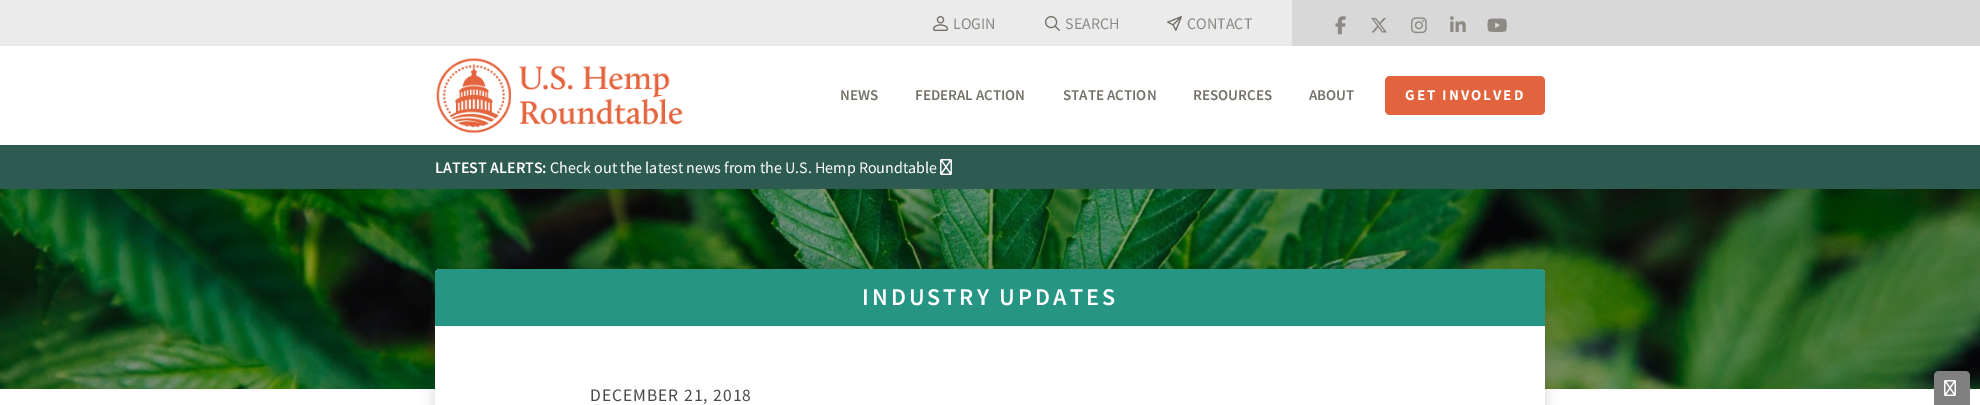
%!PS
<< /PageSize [1980 405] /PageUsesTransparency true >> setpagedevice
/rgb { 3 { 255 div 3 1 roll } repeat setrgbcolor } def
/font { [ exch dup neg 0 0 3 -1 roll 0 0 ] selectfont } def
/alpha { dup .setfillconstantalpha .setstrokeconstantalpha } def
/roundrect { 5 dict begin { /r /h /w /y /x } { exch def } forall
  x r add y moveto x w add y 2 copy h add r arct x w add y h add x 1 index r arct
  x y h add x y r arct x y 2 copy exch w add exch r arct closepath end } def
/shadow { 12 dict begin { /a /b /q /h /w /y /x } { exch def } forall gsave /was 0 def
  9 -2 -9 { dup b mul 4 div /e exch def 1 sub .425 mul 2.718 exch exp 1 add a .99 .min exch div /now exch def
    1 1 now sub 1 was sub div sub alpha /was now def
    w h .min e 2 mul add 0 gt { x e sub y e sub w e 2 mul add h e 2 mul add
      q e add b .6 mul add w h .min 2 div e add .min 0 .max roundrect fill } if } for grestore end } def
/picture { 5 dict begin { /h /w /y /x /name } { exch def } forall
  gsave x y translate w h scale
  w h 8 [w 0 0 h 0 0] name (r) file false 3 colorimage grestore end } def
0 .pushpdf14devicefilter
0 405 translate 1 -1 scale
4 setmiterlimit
255 255 255 rgb
0 0 1980 405 rectfill
235 235 235 rgb
0 0 1292 46 rectfill
(img/1.rgb) 933 16 15 15 picture
(img/2.rgb) 1045 16 15 15 picture
(img/3.rgb) 1167 16 15 15 picture
216 216 216 rgb
1292 0 688 46 rectfill
(img/4.rgb) 1335 16 11 19 picture
(img/5.rgb) 1371 17 16 16 picture
(img/6.rgb) 1411 17 16 17 picture
(img/7.rgb) 1450 16 16 16 picture
(img/8.rgb) 1487 18 20 14 picture
(img/9.rgb) 436 58 247 76 picture
226 100 62 rgb
1385 76 160 39 5 roundrect fill
46 91 81 rgb
0 145 1980 44 rectfill
(img/10.rgb) 940 159 12 16 picture
(img/11.rgb) 0 189 1980 200 picture
0 0 0 rgb
435 269 1110 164 5 7.5 0.16 shadow
255 255 255 rgb
435 269 1110 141 5 roundrect fill
38 149 132 rgb
440 269 moveto 1540 269 lineto 1543 269 1545 271 1545 274 curveto 1545 326 lineto 435 326 lineto 435 274 lineto 435 271 437 269 440 269 curveto closepath fill
128 128 128 rgb
1939 371 moveto 1965 371 lineto 1968 371 1970 373 1970 376 curveto 1970 405 lineto 1934 405 lineto 1934 376 lineto 1934 373 1936 371 1939 371 curveto closepath fill
(img/12.rgb) 1944 380 12 16 picture
/SourceSansPro-Regular 16 font
141 138 132 rgb
[
  [(LOGIN) 953 29]
  [(SEARCH) 1065 29]
  [(CONTACT) 1187 29]
] { aload pop moveto show } forall
/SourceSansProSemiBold-SemiBold 15 font
116 112 104 rgb
[
  [(NEWS) 840 100]
  [(FEDERAL ACTION) 915 100]
  [(STATE ACTION) 1063 100]
  [(RESOURCES) 1193 100]
  [(ABOUT) 1309 100]
] { aload pop moveto show } forall
/SourceSansPro-Bold 15 font
255 255 255 rgb
1405 100 moveto 2 0 (GET INVOLVED) ashow
/SourceSansProSemiBold-SemiBold 16 font
435 173 moveto (LATEST ALERTS:) show
/SourceSansPro-Regular 16 font
550 173 moveto (Check out the latest news from the U.S. Hemp Roundtable) show
/SourceSansProSemiBold-SemiBold 24 font
862 305 moveto 3 0 (INDUSTRY UPDATES) ashow
/SourceSansPro-Regular 17.5 font
74 74 74 rgb
590 401 moveto 1 0 (DECEMBER 21, 2018) ashow
.poppdf14devicefilter showpage
